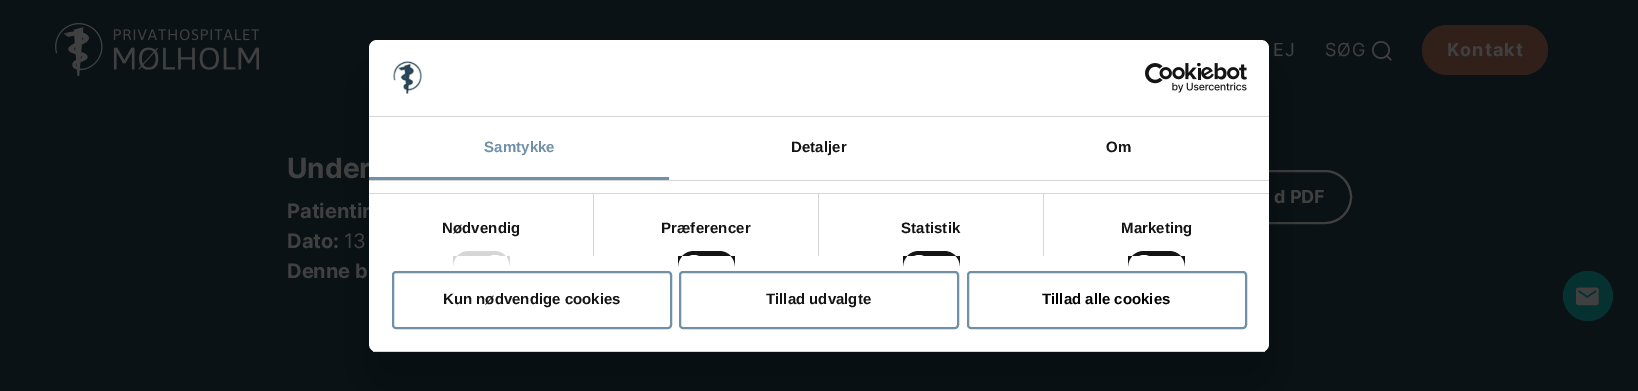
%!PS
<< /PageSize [1638 391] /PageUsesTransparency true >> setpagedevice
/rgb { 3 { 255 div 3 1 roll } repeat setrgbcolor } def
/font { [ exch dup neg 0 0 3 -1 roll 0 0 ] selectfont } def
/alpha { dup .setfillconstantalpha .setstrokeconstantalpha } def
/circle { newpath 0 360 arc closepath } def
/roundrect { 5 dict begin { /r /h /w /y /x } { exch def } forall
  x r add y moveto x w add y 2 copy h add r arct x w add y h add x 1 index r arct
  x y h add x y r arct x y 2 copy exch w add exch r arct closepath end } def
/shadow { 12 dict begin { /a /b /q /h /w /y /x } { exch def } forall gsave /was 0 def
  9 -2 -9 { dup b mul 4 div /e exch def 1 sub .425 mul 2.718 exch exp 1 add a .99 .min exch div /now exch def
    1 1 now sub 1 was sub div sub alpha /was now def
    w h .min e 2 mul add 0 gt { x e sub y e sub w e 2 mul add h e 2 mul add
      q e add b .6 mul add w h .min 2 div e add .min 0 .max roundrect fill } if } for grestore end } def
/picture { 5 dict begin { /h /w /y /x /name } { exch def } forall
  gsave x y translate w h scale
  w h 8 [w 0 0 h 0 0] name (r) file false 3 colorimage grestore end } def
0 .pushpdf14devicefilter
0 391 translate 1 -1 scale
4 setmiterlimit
10 18 22 rgb
0 0 1638 391 rectfill
(img/1.rgb) 55 23 204 53 picture
(img/2.rgb) 1372 41 20 20 picture
49 31 26 rgb
1422 25 126 50 25 roundrect fill
64 64 64 rgb
2 setlinewidth
1171 171 180 52 26 roundrect stroke
0 0 0 rgb
369 72 900 312 8 34 0.3 shadow
5 49 49 rgb
1588 296 25 circle fill
(img/5.rgb) 1576 287 23 19 picture
/Inter-Regular 18 font
64 64 64 rgb
1273 56 moveto 1 0 (EJ) ashow
1325 56 moveto 1 0 (SØG) ashow
/Inter-Bold 18 font
1447 56 moveto 1 0 (Kontakt) ashow
/Inter-Bold 28 font
287 178 moveto (Under) show
/Inter-Bold 20 font
287 218 moveto (Patientin) show
255 255 255 rgb
369 40 900 312 8 roundrect fill
111 144 167 rgb
968 272 278 56 3 roundrect stroke
/LiberationSans-Bold 15 font
0 0 0 rgb
1042 304 moveto (Tillad alle cookies) show
111 144 167 rgb
680 272 278 56 3 roundrect stroke
20 20 20 rgb
766 304 moveto (Tillad udvalgte) show
111 144 167 rgb
393 272 278 56 3 roundrect stroke
20 20 20 rgb
443 304 moveto (Kun nødvendige cookies) show
gsave
369 40 900 312 8 roundrect clip newpath
214 214 214 rgb
369 351 900 1 rectfill
grestore
1144 251 moveto 1169 251 lineto 1178 251 1185 258 1185 267 curveto 1185 256 lineto 1128 256 lineto 1128 267 lineto 1128 258 1135 251 1144 251 curveto closepath fill
255 255 255 rgb
1144 255 moveto 1150.5 255 1156 260.5 1156 267 curveto 1156 256 lineto 1132 256 lineto 1132 267 lineto 1132 260.5 1137.5 255 1144 255 curveto closepath fill
20 20 20 rgb
919 251 moveto 944 251 lineto 953 251 960 258 960 267 curveto 960 256 lineto 903 256 lineto 903 267 lineto 903 258 910 251 919 251 curveto closepath fill
255 255 255 rgb
919 255 moveto 925.5 255 931 260.5 931 267 curveto 931 256 lineto 907 256 lineto 907 267 lineto 907 260.5 912.5 255 919 255 curveto closepath fill
20 20 20 rgb
694 251 moveto 719 251 lineto 728 251 735 258 735 267 curveto 735 256 lineto 678 256 lineto 678 267 lineto 678 258 685 251 694 251 curveto closepath fill
255 255 255 rgb
694 255 moveto 700.5 255 706 260.5 706 267 curveto 706 256 lineto 682 256 lineto 682 267 lineto 682 260.5 687.5 255 694 255 curveto closepath fill
214 214 214 rgb
469 251 moveto 494 251 lineto 503 251 510 258 510 267 curveto 510 256 lineto 453 256 lineto 453 267 lineto 453 258 460 251 469 251 curveto closepath fill
255 255 255 rgb
495 255 moveto 501.5 255 507 260.5 507 267 curveto 507 256 lineto 483 256 lineto 483 267 lineto 483 260.5 488.5 255 495 255 curveto closepath fill
214 214 214 rgb
369 193 900 1 rectfill
20 20 20 rgb
1106 152 moveto 0.1 0 (Om) ashow
791 152 moveto 0.1 0 (Detaljer) ashow
111 144 167 rgb
484 152 moveto 0.1 0 (Samtykke) ashow
369 177 300 3 rectfill
214 214 214 rgb
369 180 900 1 rectfill
20 20 20 rgb
1121 233 moveto 0.1 0 (Marketing) ashow
901 233 moveto 0.1 0 (Statistik) ashow
214 214 214 rgb
1043 194 1 62 rectfill
20 20 20 rgb
661 233 moveto 0.1 0 (Præferencer) ashow
214 214 214 rgb
818 194 1 62 rectfill
20 20 20 rgb
442 233 moveto 0.1 0 (Nødvendig) ashow
214 214 214 rgb
593 194 1 62 rectfill
(img/4.rgb) 1145 63 102 30 picture
(img/3.rgb) 393 61 29 33 picture
369 116 900 1 rectfill
/Inter-Bold 20 font
64 64 64 rgb
287 248 moveto (Dato:) show
/Inter-Regular 20 font
344 248 moveto (13) show
/Inter-Bold 20 font
287 278 moveto (Denne b) show
/Inter-Bold 18 font
1274 203 moveto (d PDF) show
.poppdf14devicefilter showpage
